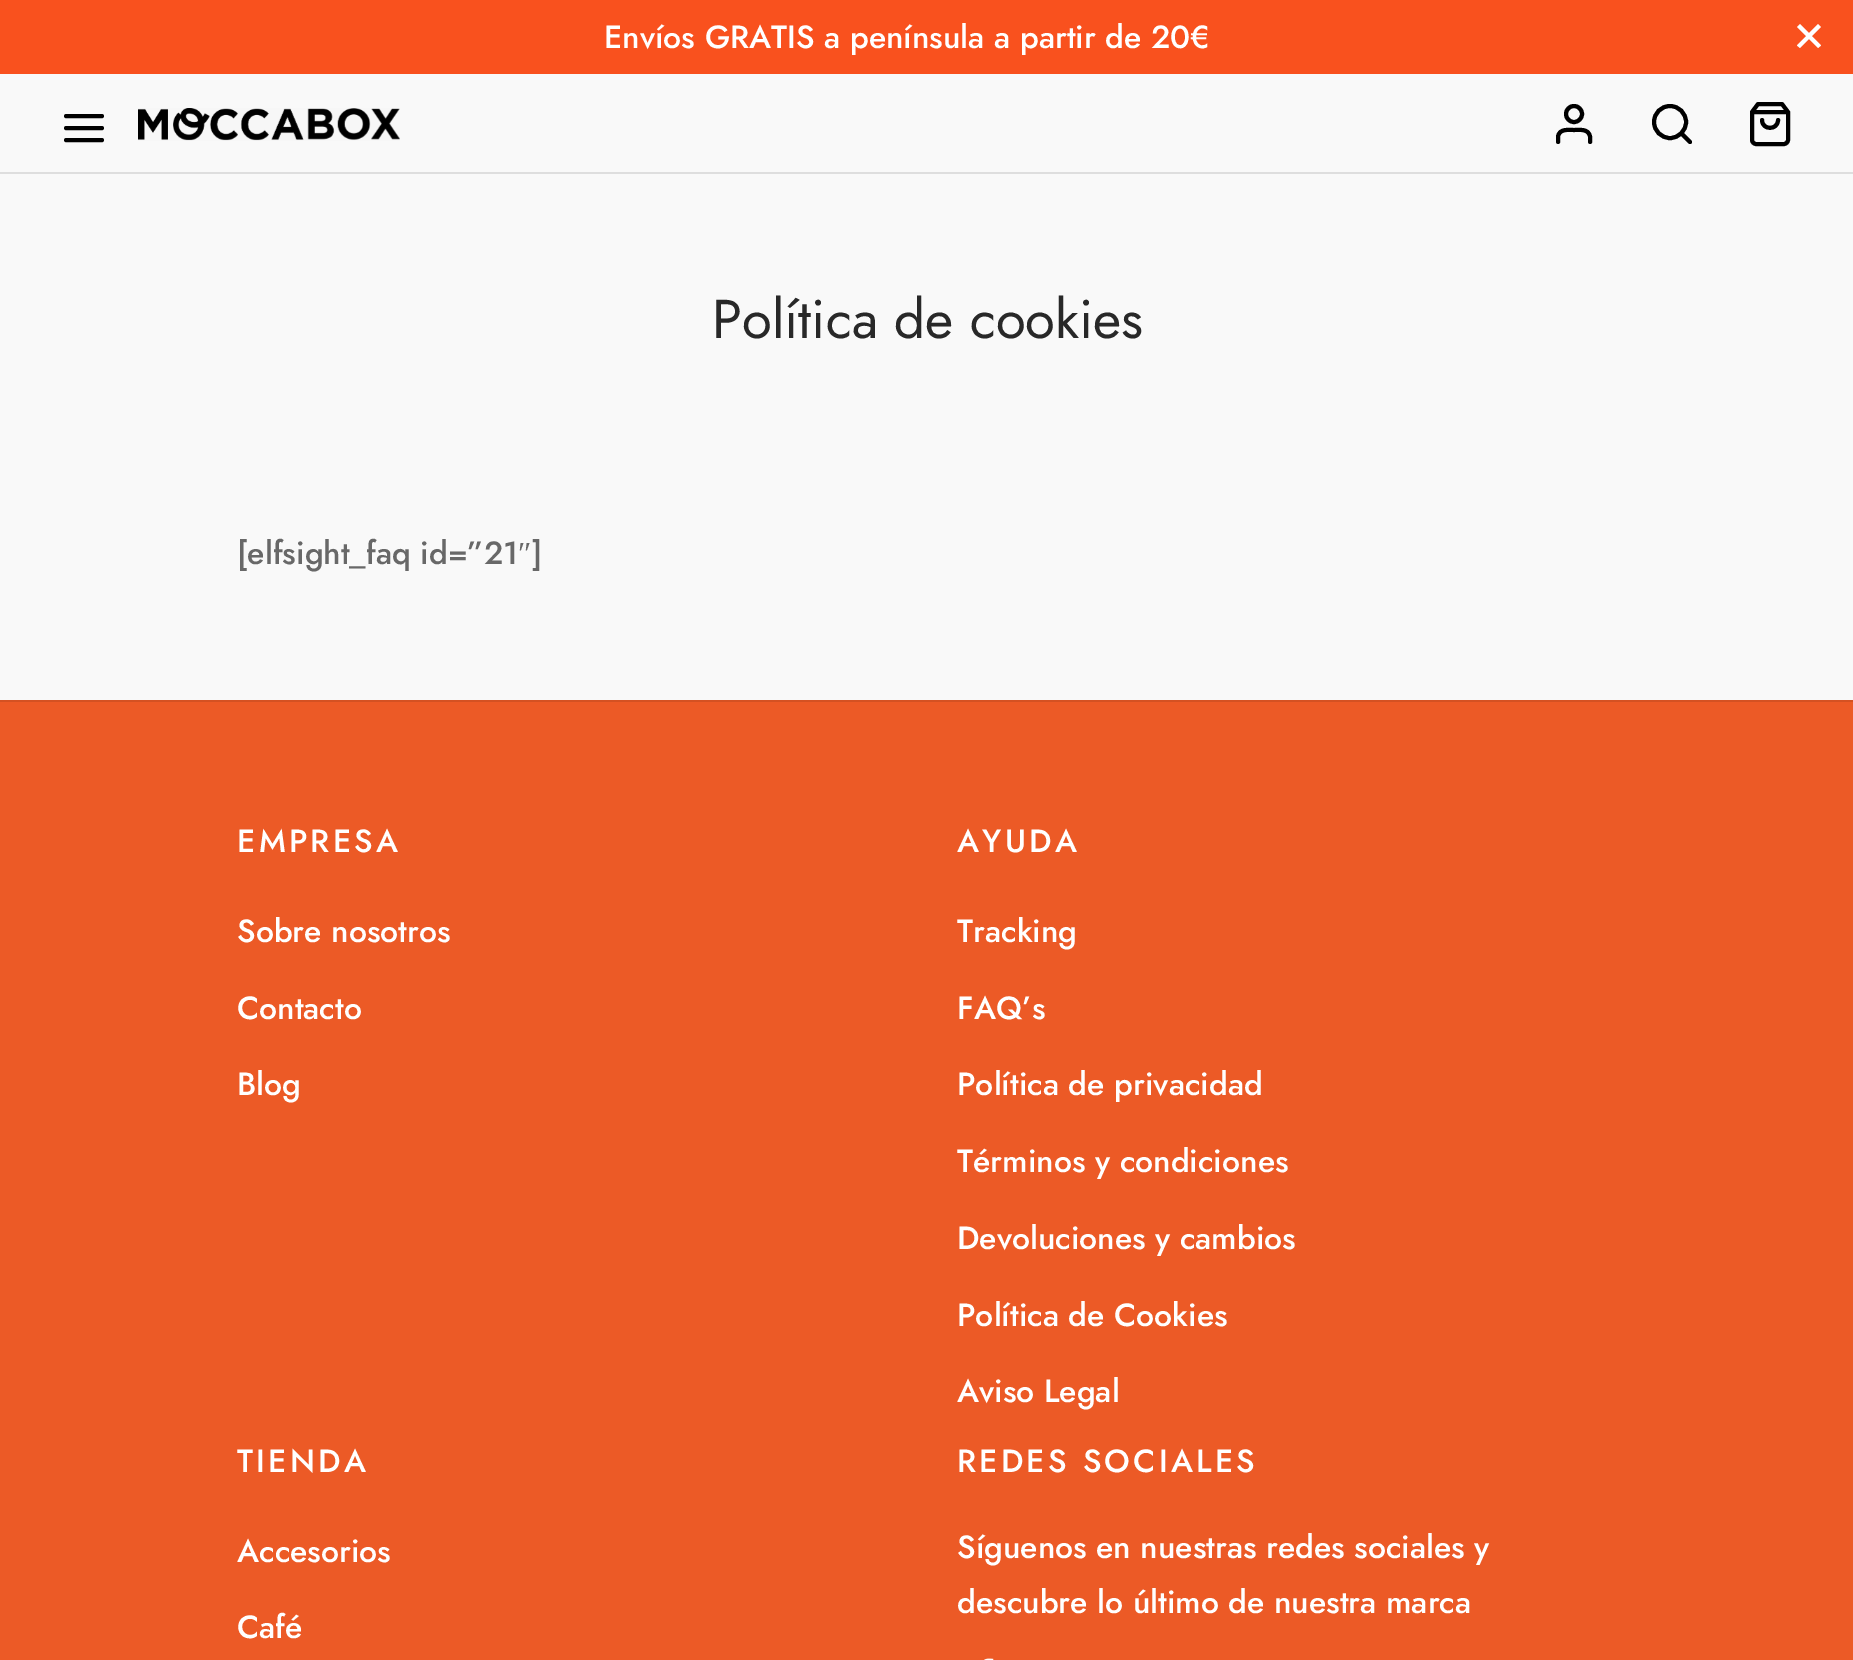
%!PS
<< /PageSize [1853 1660] >> setpagedevice
/rgb { 3 { 255 div 3 1 roll } repeat setrgbcolor } def
/font { [ exch dup neg 0 0 3 -1 roll 0 0 ] selectfont } def
/circle { newpath 0 360 arc closepath } def
/picture { 5 dict begin { /h /w /y /x /name } { exch def } forall
  gsave x y translate w h scale
  w h 8 [w 0 0 h 0 0] name (r) file false 3 colorimage grestore end } def
0 1660 translate 1 -1 scale
4 setmiterlimit
249 249 249 rgb
0 0 1853 1660 rectfill
249 81 30 rgb
0 0 1853 74 rectfill
255 255 255 rgb
1800 24 moveto 1821 45.5 lineto 1818 48 lineto 1797 27 lineto closepath fill
1797 45.5 moveto 1818 24 lineto 1821 27 lineto 1800 48 lineto closepath fill
0 0 0 rgb
4 setlinewidth
1 setlinecap
1 setlinejoin
66 128 moveto 102 128 lineto 66 116 moveto 102 116 lineto 66 140 moveto 102 140 lineto stroke
(img/1.rgb) 138 108 262 33 picture
1590 142 moveto 1590 136.5 lineto 1588.5 128.5 1580 130 1574 130 curveto 1568 130 1559.5 128.5 1558 136.5 curveto 1558 142 lineto stroke
0 setlinecap
0 setlinejoin
1574 114 8 circle stroke
1670 122 16 circle stroke
1 setlinecap
1 setlinejoin
1690 142 moveto 1681.5 133.5 lineto stroke
1758 104 moveto 1752 112 lineto 1752 140 lineto 1752 142 1754 144 1756 144 curveto 1784 144 lineto 1786 144 1788 142 1788 140 curveto 1788 112 lineto 1782 104 lineto closepath 1752 112 moveto 1788 112 lineto 1778 120 moveto 1778 130.5 1762 130.5 1762 120 curveto stroke
[
  [0 172 1853 2 222 222 222]
  [0 702 1853 958 236 90 38]
  [0 700 1853 2 212 81 34]
] { aload pop rgb rectfill } forall
(img/2.rgb) 984 1658 10 2 picture
/Jost-Medium 32 font
255 255 255 rgb
604 48 moveto (Envíos GRATIS a península a partir de 20€) show
/Jost-Regular 54.5 font
40 40 40 rgb
712 338 moveto (Política de cookies) show
/Jost-Medium 32 font
104 104 104 rgb
237 564 moveto ([elfsight_faq id=”21) show
/LiberationSerif-Regular 32 font
518 564 moveto (″) show
/Jost-Medium 32 font
532 564 moveto (]) show
255 255 255 rgb
237 852 moveto 3.25 0 (EMPRESA) ashow
[
  [(Sobre nosotros) 237 942]
  [(Contacto) 237 1019]
  [(Blog) 237 1095]
] { aload pop moveto show } forall
957 852 moveto 3.25 0 (AYUDA) ashow
[
  [(Tracking) 957 942]
  [(FAQ’s) 957 1019]
  [(Política de privacidad) 957 1095]
  [(Términos y condiciones) 957 1172]
  [(Devoluciones y cambios) 957 1249]
  [(Política de Cookies) 957 1326]
  [(Aviso Legal) 957 1402]
] { aload pop moveto show } forall
237 1472 moveto 3.25 0 (TIENDA) ashow
237 1562 moveto (Accesorios) show
237 1638 moveto (Café) show
957 1472 moveto 3.25 0 (REDES SOCIALES) ashow
957 1558 moveto (Síguenos en nuestras redes sociales y) show
957 1613 moveto (descubre lo último de nuestra marca) show
showpage
